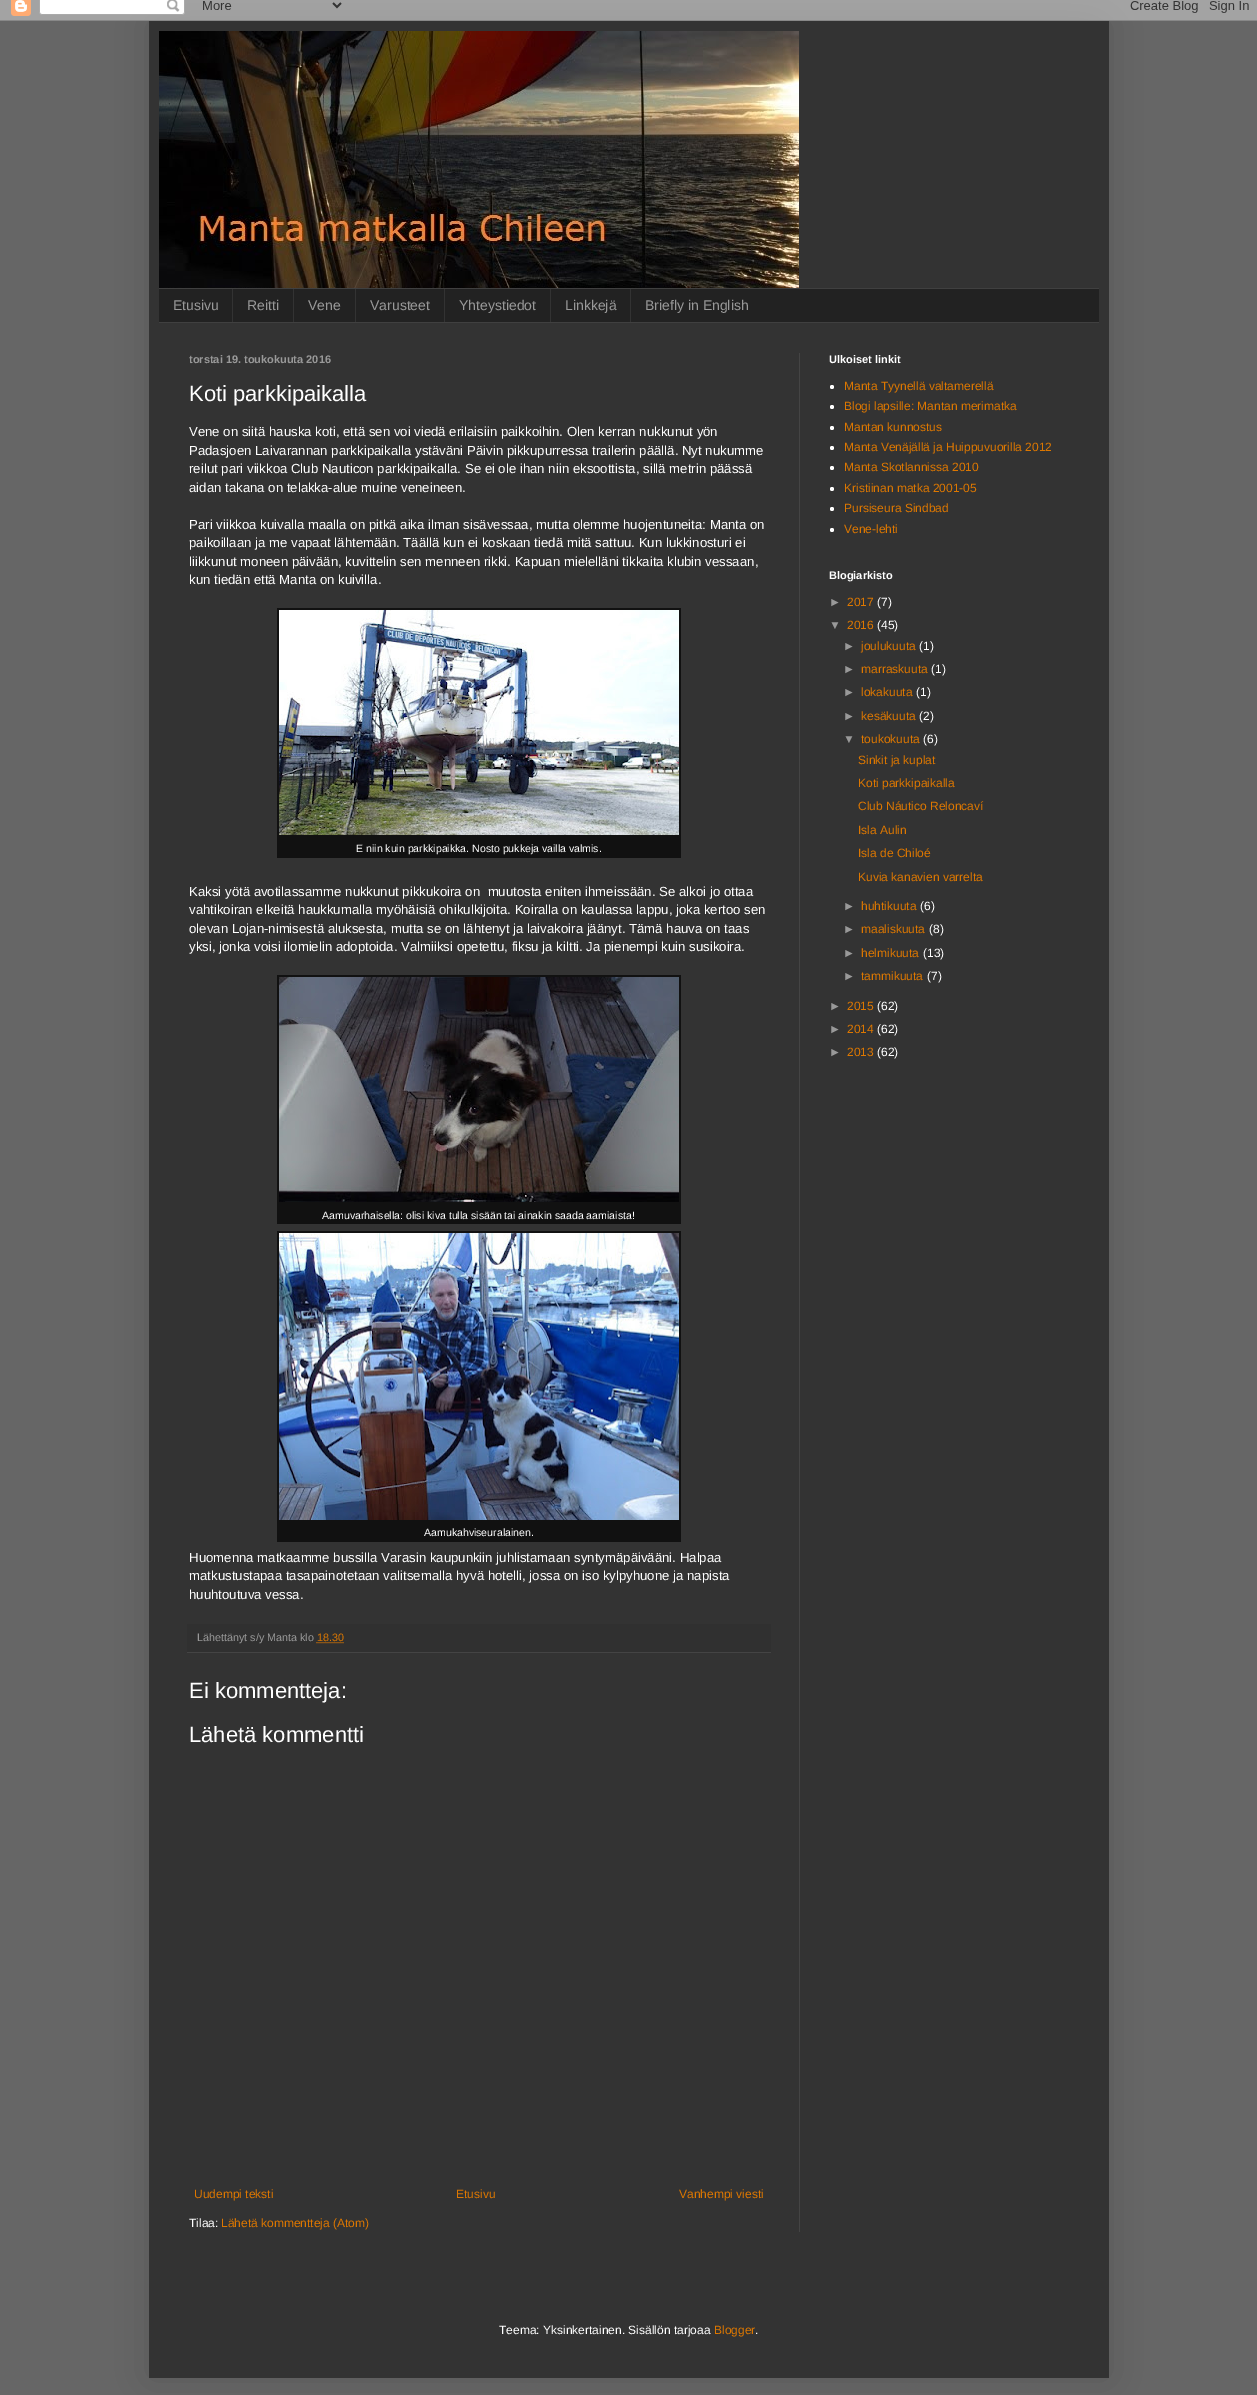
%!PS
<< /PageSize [1257 2395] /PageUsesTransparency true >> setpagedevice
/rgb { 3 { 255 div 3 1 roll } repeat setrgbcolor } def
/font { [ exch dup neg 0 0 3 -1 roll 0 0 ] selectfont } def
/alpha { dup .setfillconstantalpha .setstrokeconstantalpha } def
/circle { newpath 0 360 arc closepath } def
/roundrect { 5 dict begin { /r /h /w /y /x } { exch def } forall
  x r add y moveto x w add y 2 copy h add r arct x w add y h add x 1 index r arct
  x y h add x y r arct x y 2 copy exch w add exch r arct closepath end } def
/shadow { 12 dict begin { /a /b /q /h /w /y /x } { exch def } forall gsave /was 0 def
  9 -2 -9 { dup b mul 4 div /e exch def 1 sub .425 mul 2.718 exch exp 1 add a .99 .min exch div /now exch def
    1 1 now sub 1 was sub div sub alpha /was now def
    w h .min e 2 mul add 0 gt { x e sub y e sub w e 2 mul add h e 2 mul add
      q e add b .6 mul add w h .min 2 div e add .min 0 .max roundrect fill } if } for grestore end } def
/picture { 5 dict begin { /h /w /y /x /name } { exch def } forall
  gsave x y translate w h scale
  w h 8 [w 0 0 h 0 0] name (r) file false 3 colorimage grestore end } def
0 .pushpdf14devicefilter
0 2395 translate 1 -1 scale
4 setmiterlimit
102 102 102 rgb
0 0 1257 2395 rectfill
0 0 0 rgb
149 21 960 2357 0 20 0.15 shadow
(img/1.rgb) 0 0 1257 21 picture
51 51 51 rgb
149 21 960 2357 rectfill
(img/2.rgb) 159 31 640 257 picture
[
  [159 289 940 33 34 34 34]
  [159 288 940 1 64 64 64]
  [159 322 940 1 64 64 64]
  [232 289 1 33 51 51 51]
  [293 289 1 33 51 51 51]
  [355 289 1 33 51 51 51]
  [444 289 1 33 51 51 51]
  [550 289 1 33 51 51 51]
  [630 289 1 33 51 51 51]
  [799 353 1 1879 68 68 68]
  [277 608 404 250 17 17 17]
] { aload pop rgb rectfill } forall
(img/3.rgb) 279 610 400 225 picture
277 975 404 249 rectfill
(img/4.rgb) 279 977 400 225 picture
277 1231 404 311 rectfill
(img/5.rgb) 279 1233 400 287 picture
48 48 48 rgb
187 1624 584 28 rectfill
68 68 68 rgb
187 1652 584 1 rectfill
221 119 0 rgb
[1 1] 0 setdash
316.5 1642.5 moveto 343.5 1642.5 lineto stroke
255 255 255 rgb
832 387 2 circle fill
832 407 2 circle fill
832 428 2 circle fill
832 448 2 circle fill
832 468 2 circle fill
832 489 2 circle fill
832 509 2 circle fill
832 530 2 circle fill
/LiberationSans-Regular 14 font
153 153 153 rgb
[
  [(Etusivu) 173 310]
  [(Reitti) 247 310]
  [(Vene) 308 310]
  [(Varusteet) 370 310]
  [(Yhteystiedot) 459 310]
  [(Linkkejä) 565 310]
  [(Briefly in English) 645 310]
] { aload pop moveto show } forall
/LiberationSans-Bold 11 font
189 363 moveto (torstai 19. toukokuuta 2016) show
/LiberationSans-Regular 22 font
255 255 255 rgb
189 401 moveto (Koti parkkipaikalla) show
/LiberationSans-Regular 13.2 font
[
  [(Vene on siitä hauska koti, että sen voi viedä erilaisiin paikkoihin. Olen kerran nukkunut yön) 189 436]
  [(Padasjoen Laivarannan parkkipaikalla ystäväni Päivin pikkupurressa trailerin päällä. Nyt nukumme) 189 455]
  [(reilut pari viikkoa Club Nauticon parkkipaikalla. Se ei ole ihan niin eksoottista, sillä metrin päässä) 189 473]
  [(aidan takana on telakka-alue muine veneineen.) 189 492]
  [(Pari viikkoa kuivalla maalla on pitkä aika ilman sisävessaa, mutta olemme huojentuneita: Manta on) 189 529]
  [(paikoillaan ja me vapaat lähtemään. Täällä kun ei koskaan tiedä mitä sattuu. Kun lukkinosturi ei) 189 547]
  [(liikkunut moneen päivään, kuvittelin sen menneen rikki. Kapuan mielelläni tikkaita klubin vessaan,) 189 566]
  [(kun tiedän että Manta on kuivilla.) 189 584]
] { aload pop moveto show } forall
/LiberationSans-Regular 10.55 font
356 852 moveto (E niin kuin parkkipaikka. Nosto pukkeja vailla valmis.) show
/LiberationSans-Regular 13.2 font
[
  [(Kaksi yötä avotilassamme nukkunut pikkukoira on  muutosta eniten ihmeissään. Se alkoi jo ottaa) 189 896]
  [(vahtikoiran elkeitä haukkumalla myöhäisiä ohikulkijoita. Koiralla on kaulassa lappu, joka kertoo sen) 189 914]
  [(olevan Lojan-nimisestä aluksesta, mutta se on lähtenyt ja laivakoira jäänyt. Tämä hauva on taas) 189 933]
  [(yksi, jonka voisi ilomielin adoptoida. Valmiiksi opetettu, fiksu ja kiltti. Ja pienempi kuin susikoira.) 189 951]
] { aload pop moveto show } forall
/LiberationSans-Regular 10.55 font
322 1219 moveto (Aamuvarhaisella: olisi kiva tulla sisään tai ainakin saada aamiaista!) show
424 1536 moveto (Aamukahviseuralainen.) show
/LiberationSans-Regular 13.2 font
[
  [(Huomenna matkaamme bussilla Varasin kaupunkiin juhlistamaan syntymäpäivääni. Halpaa) 189 1562]
  [(matkustustapaa tasapainotetaan valitsemalla hyvä hotelli, jossa on iso kylpyhuone ja napista) 189 1580]
  [(huuhtoutuva vessa.) 189 1599]
] { aload pop moveto show } forall
/LiberationSans-Regular 10.75 font
153 153 153 rgb
197 1641 moveto (Lähettänyt s/y Manta klo) show
221 119 0 rgb
317 1641 moveto (18.30) show
/LiberationSans-Regular 22 font
255 255 255 rgb
189 1698 moveto (Ei kommentteja:) show
189 1742 moveto (Lähetä kommentti) show
/LiberationSans-Regular 12 font
221 119 0 rgb
[
  [(Uudempi teksti) 194 2198]
  [(Etusivu) 456 2198]
  [(Vanhempi viesti) 679 2198]
] { aload pop moveto show } forall
255 255 255 rgb
189 2227 moveto (Tilaa:) show
221 119 0 rgb
221 2227 moveto (Lähetä kommentteja \(Atom\)) show
/LiberationSans-Bold 11 font
255 255 255 rgb
829 363 moveto (Ulkoiset linkit) show
/LiberationSans-Regular 12 font
221 119 0 rgb
[
  [(Manta Tyynellä valtamerellä) 844 390]
  [(Blogi lapsille: Mantan merimatka) 844 410]
  [(Mantan kunnostus) 844 431]
  [(Manta Venäjällä ja Huippuvuorilla 2012) 844 451]
  [(Manta Skotlannissa 2010) 844 471]
  [(Kristiinan matka 2001-05) 844 492]
  [(Pursiseura Sindbad) 844 512]
  [(Vene-lehti) 844 533]
] { aload pop moveto show } forall
/LiberationSans-Bold 11 font
255 255 255 rgb
829 579 moveto (Blogiarkisto) show
/LiberationSans-Regular 12 font
153 153 153 rgb
829 606 moveto (►) show
221 119 0 rgb
847 606 moveto (2017) show
255 255 255 rgb
877 606 moveto (\(7\)) show
153 153 153 rgb
829 629 moveto (▼) show
221 119 0 rgb
847 629 moveto (2016) show
255 255 255 rgb
877 629 moveto (\(45\)) show
153 153 153 rgb
843 650 moveto (►) show
221 119 0 rgb
861 650 moveto (joulukuuta) show
255 255 255 rgb
919 650 moveto (\(1\)) show
153 153 153 rgb
843 673 moveto (►) show
221 119 0 rgb
861 673 moveto (marraskuuta) show
255 255 255 rgb
931 673 moveto (\(1\)) show
153 153 153 rgb
843 696 moveto (►) show
221 119 0 rgb
861 696 moveto (lokakuuta) show
255 255 255 rgb
916 696 moveto (\(1\)) show
153 153 153 rgb
843 720 moveto (►) show
221 119 0 rgb
861 720 moveto (kesäkuuta) show
255 255 255 rgb
919 720 moveto (\(2\)) show
153 153 153 rgb
843 743 moveto (▼) show
221 119 0 rgb
861 743 moveto (toukokuuta) show
255 255 255 rgb
923 743 moveto (\(6\)) show
221 119 0 rgb
[
  [(Sinkit ja kuplat) 858 764]
  [(Koti parkkipaikalla) 858 787]
  [(Club Náutico Reloncaví) 858 810]
  [(Isla Aulin) 858 834]
  [(Isla de Chiloé) 858 857]
  [(Kuvia kanavien varrelta) 858 881]
] { aload pop moveto show } forall
153 153 153 rgb
843 910 moveto (►) show
221 119 0 rgb
861 910 moveto (huhtikuuta) show
255 255 255 rgb
920 910 moveto (\(6\)) show
153 153 153 rgb
843 933 moveto (►) show
221 119 0 rgb
861 933 moveto (maaliskuuta) show
255 255 255 rgb
929 933 moveto (\(8\)) show
153 153 153 rgb
843 957 moveto (►) show
221 119 0 rgb
861 957 moveto (helmikuuta) show
255 255 255 rgb
923 957 moveto (\(13\)) show
153 153 153 rgb
843 980 moveto (►) show
221 119 0 rgb
861 980 moveto (tammikuuta) show
255 255 255 rgb
927 980 moveto (\(7\)) show
153 153 153 rgb
829 1010 moveto (►) show
221 119 0 rgb
847 1010 moveto (2015) show
255 255 255 rgb
877 1010 moveto (\(62\)) show
153 153 153 rgb
829 1033 moveto (►) show
221 119 0 rgb
847 1033 moveto (2014) show
255 255 255 rgb
877 1033 moveto (\(62\)) show
153 153 153 rgb
829 1056 moveto (►) show
221 119 0 rgb
847 1056 moveto (2013) show
255 255 255 rgb
877 1056 moveto (\(62\)) show
499 2334 moveto (Teema: Yksinkertainen. Sisällön tarjoaa) show
221 119 0 rgb
714 2334 moveto (Blogger) show
255 255 255 rgb
755 2334 moveto (.) show
.poppdf14devicefilter showpage
